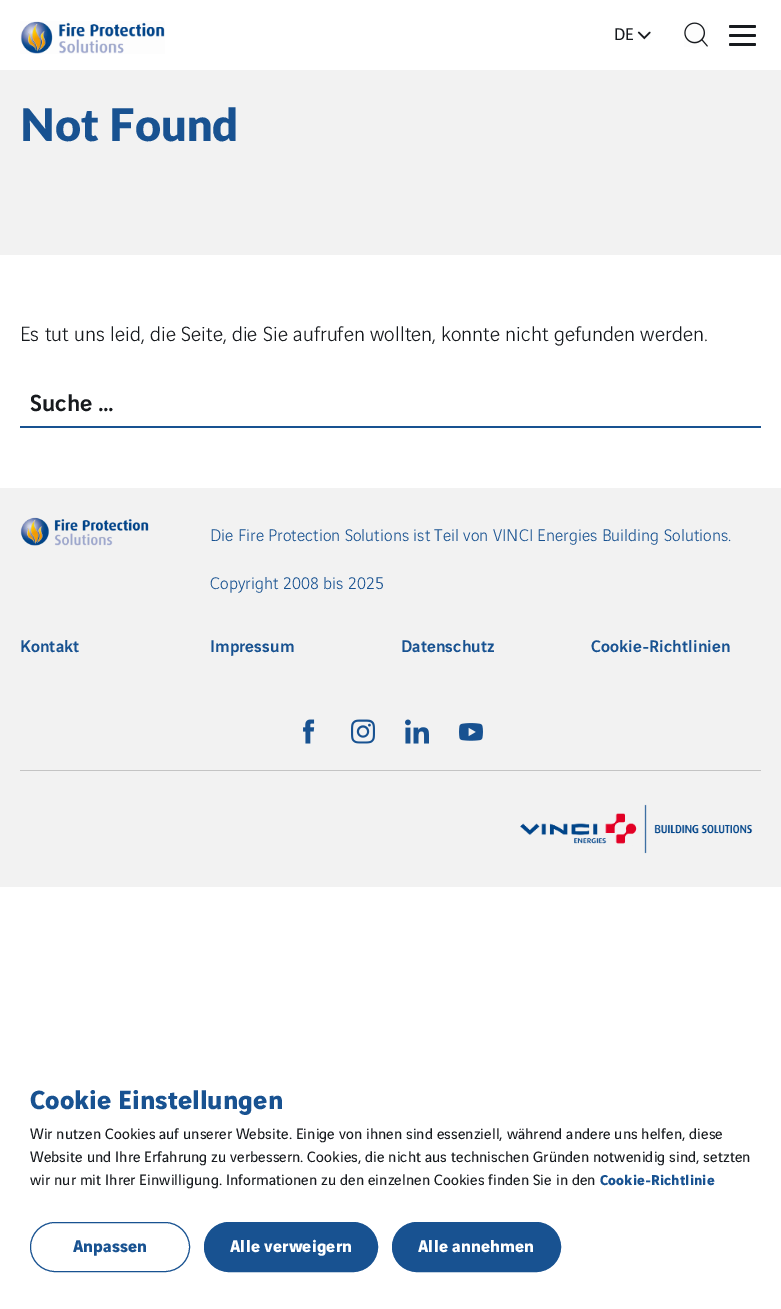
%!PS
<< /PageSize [781 1309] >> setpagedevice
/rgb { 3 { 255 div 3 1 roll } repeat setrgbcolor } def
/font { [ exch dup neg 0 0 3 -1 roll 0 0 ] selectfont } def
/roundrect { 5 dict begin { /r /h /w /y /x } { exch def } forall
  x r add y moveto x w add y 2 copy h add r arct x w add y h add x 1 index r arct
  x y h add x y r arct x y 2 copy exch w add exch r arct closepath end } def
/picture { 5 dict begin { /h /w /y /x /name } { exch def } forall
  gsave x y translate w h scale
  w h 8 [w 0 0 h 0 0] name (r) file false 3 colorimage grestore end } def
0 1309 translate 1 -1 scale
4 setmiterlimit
255 255 255 rgb
0 0 781 1309 rectfill
(img/1.rgb) 20 21 145 33 picture
(img/2.rgb) 637 31 14 9 picture
(img/3.rgb) 684 22 24 25 picture
23 26 30 rgb
729 25 27 3 1.5 roundrect fill
729 34 27 3 1.5 roundrect fill
729 43 27 3 1.5 roundrect fill
[
  [0 70 781 185 242 242 242]
  [20 426 741 2 24 82 145]
  [0 488 781 399 242 242 242]
  [20 770 741 1 196 196 196]
] { aload pop rgb rectfill } forall
(img/4.rgb) 20 517 129 29 picture
(img/5.rgb) 303 719 12 25 picture
(img/6.rgb) 351 719 24 25 picture
(img/7.rgb) 405 719 24 25 picture
(img/8.rgb) 459 723 24 18 picture
(img/9.rgb) 520 804 233 50 picture
24 82 145 rgb
30.5 1222.5 159 49 24.5 roundrect stroke
204.5 1222.5 173 49 24.5 roundrect gsave fill grestore
stroke
392.5 1222.5 168 49 24.5 roundrect gsave fill grestore
stroke
/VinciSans-Regular 18 font
23 26 30 rgb
614 40 moveto (DE) show
/Lato-Black 45 font
24 82 145 rgb
20 141 moveto 0.1 0 (Not Found) ashow
/VinciSans-Light 22 font
23 26 30 rgb
20 341 moveto 0.1 0 (Es tut uns leid, die Seite, die Sie aufrufen wollten, konnte nicht gefunden werden.) ashow
/VinciSans-Medium 25 font
30 411 moveto (Suche …) show
/VinciSans-Light 18 font
24 82 145 rgb
210 541 moveto 0.1 0 (Die Fire Protection Solutions ist Teil von VINCI Energies Building Solutions.) ashow
210 589 moveto 0.1 0 (Copyright 2008 bis 2025) ashow
/VinciSans-Medium 18 font
20 652 moveto 0.1 0 (Kontakt) ashow
210 652 moveto 0.1 0 (Impressum) ashow
401 652 moveto 0.1 0 (Datenschutz) ashow
591 652 moveto 0.1 0 (Cookie-Richtlinien) ashow
/VinciSans-Bold 28 font
30 1109 moveto 0.1 0 (Cookie Einstellungen) ashow
/VinciSans-Regular 16 font
23 26 30 rgb
30 1139 moveto 0.1 0 (Wir nutzen Cookies auf unserer Website. Einige von ihnen sind essenziell, während andere uns helfen, diese) ashow
30 1162 moveto 0.1 0 (Website und Ihre Erfahrung zu verbessern. Cookies, die nicht aus technischen Gründen notwenidig sind, setzten) ashow
30 1185 moveto 0.1 0 (wir nur mit Ihrer Einwilligung. Informationen zu den einzelnen Cookies finden Sie in den) ashow
/VinciSans-Bold 15.25 font
24 82 145 rgb
600 1185 moveto 0.1 0 (Cookie-Richtlinie) ashow
/VinciSans-Bold 18 font
73 1252 moveto 0.1 0 (Anpassen) ashow
255 255 255 rgb
230 1252 moveto 0.1 0 (Alle verweigern) ashow
418 1252 moveto 0.1 0 (Alle annehmen) ashow
showpage
